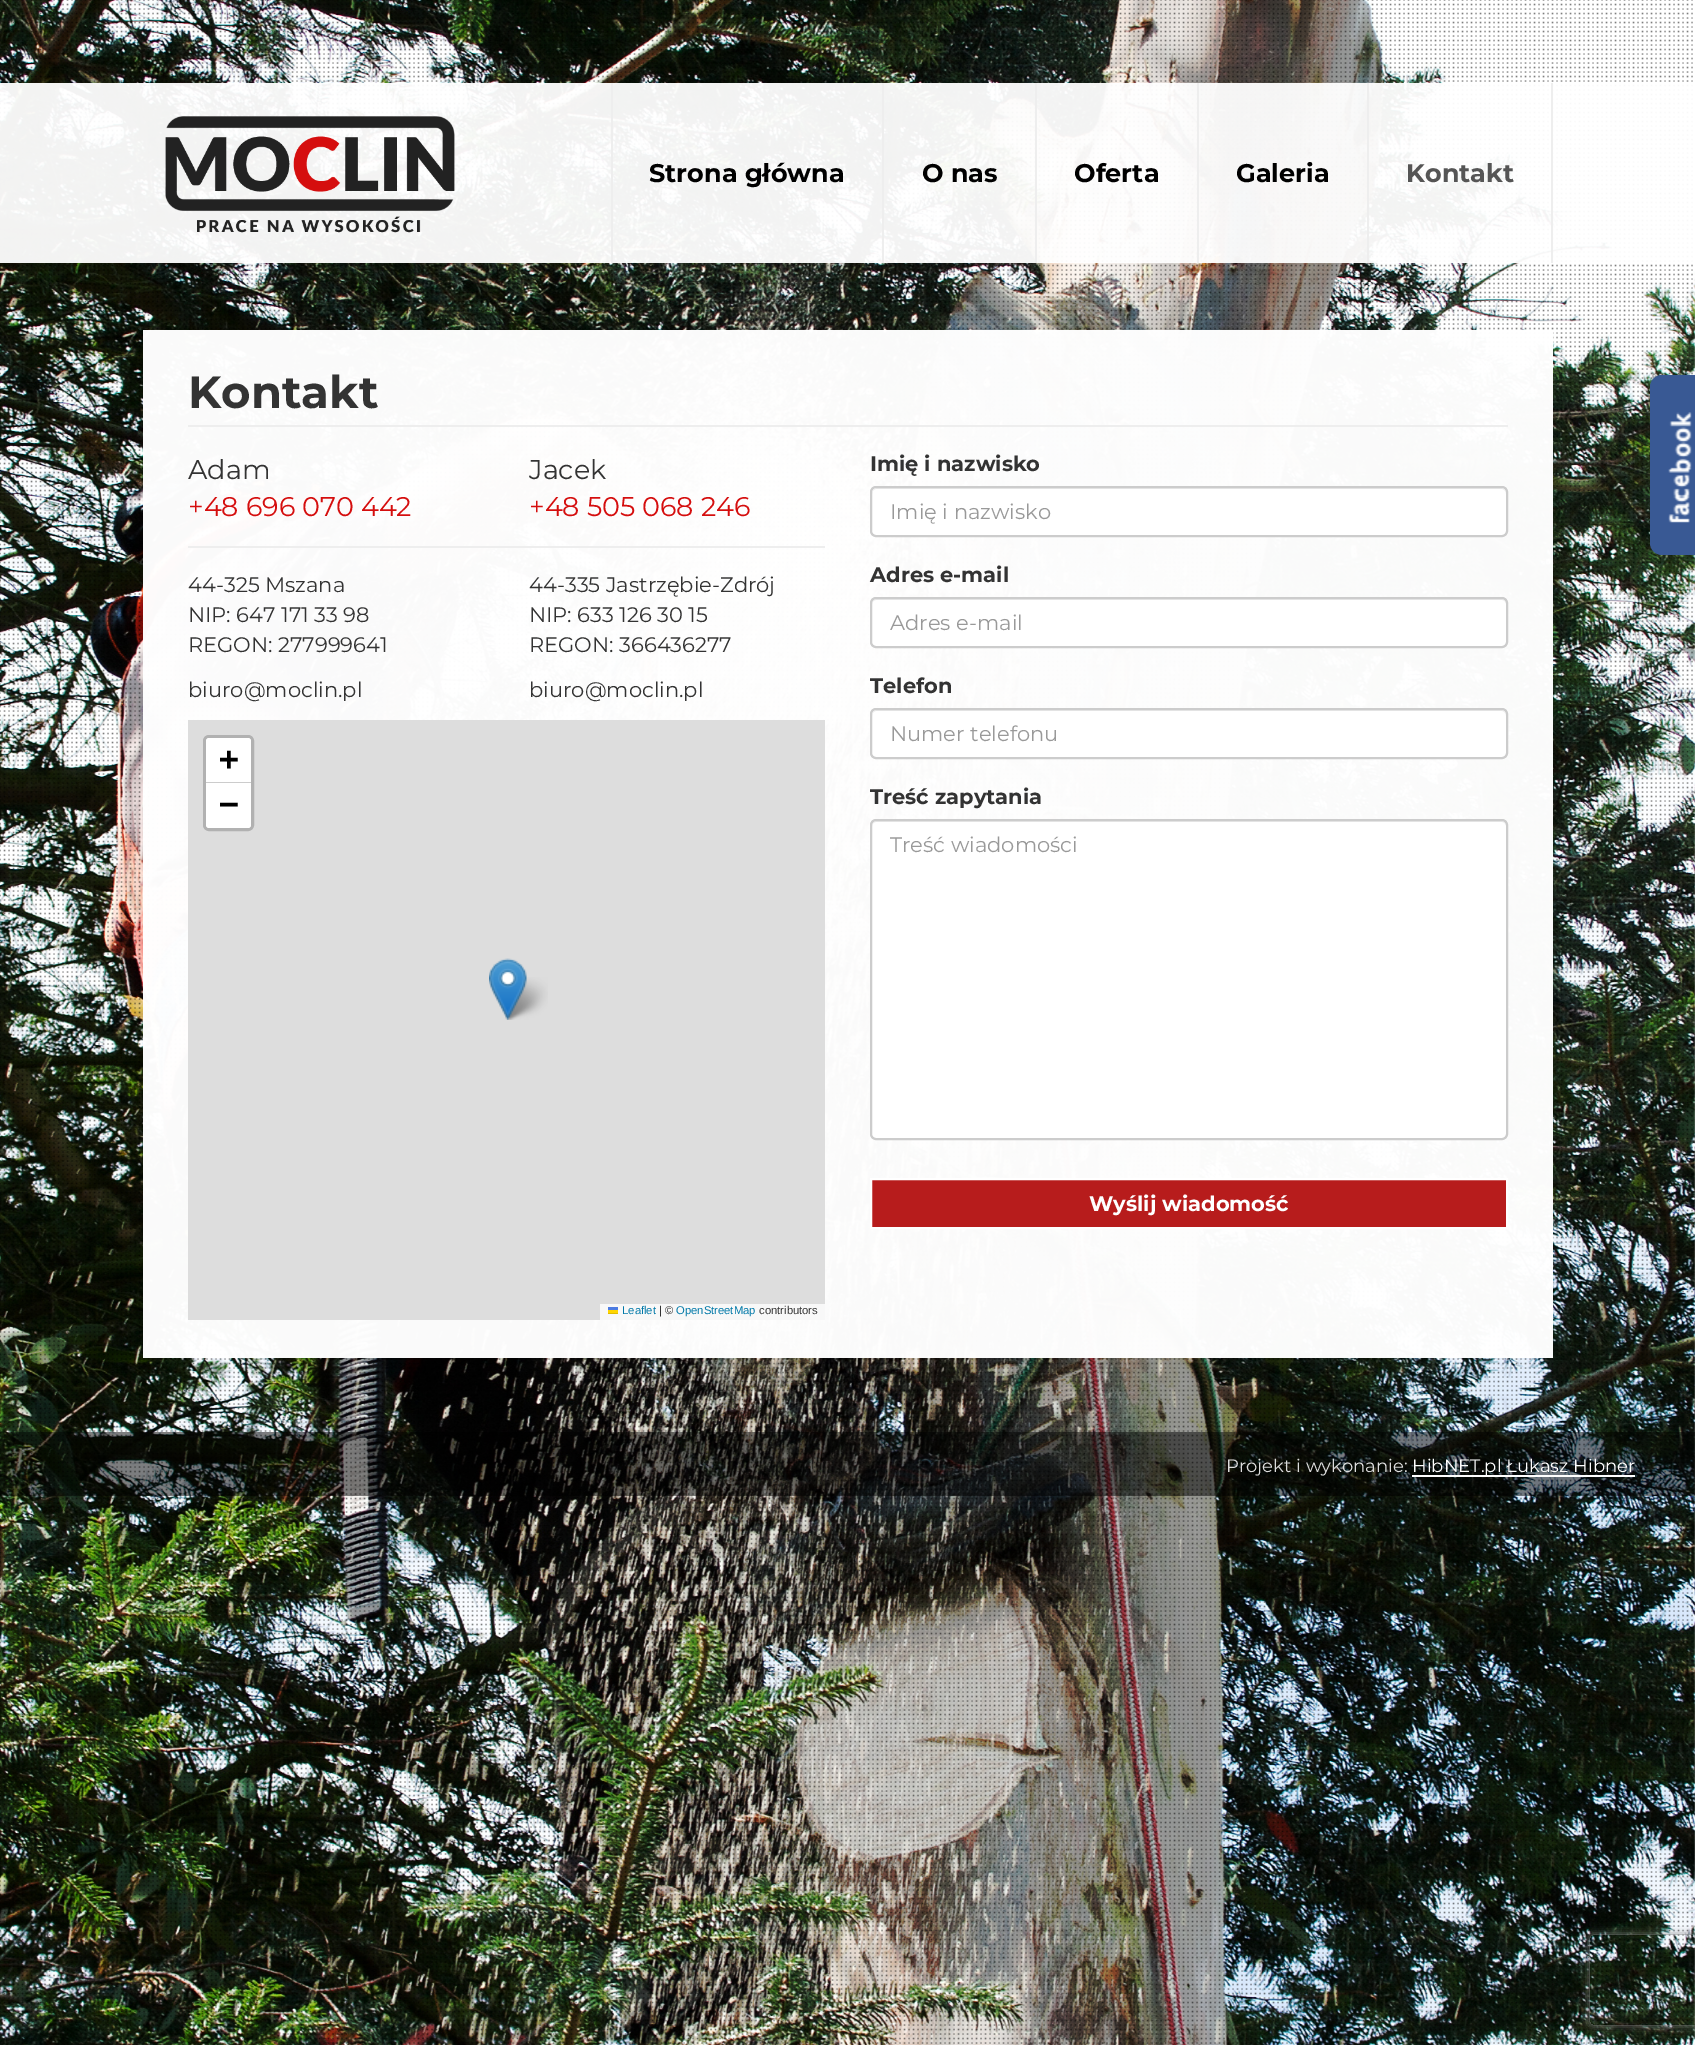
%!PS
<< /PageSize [1695 2045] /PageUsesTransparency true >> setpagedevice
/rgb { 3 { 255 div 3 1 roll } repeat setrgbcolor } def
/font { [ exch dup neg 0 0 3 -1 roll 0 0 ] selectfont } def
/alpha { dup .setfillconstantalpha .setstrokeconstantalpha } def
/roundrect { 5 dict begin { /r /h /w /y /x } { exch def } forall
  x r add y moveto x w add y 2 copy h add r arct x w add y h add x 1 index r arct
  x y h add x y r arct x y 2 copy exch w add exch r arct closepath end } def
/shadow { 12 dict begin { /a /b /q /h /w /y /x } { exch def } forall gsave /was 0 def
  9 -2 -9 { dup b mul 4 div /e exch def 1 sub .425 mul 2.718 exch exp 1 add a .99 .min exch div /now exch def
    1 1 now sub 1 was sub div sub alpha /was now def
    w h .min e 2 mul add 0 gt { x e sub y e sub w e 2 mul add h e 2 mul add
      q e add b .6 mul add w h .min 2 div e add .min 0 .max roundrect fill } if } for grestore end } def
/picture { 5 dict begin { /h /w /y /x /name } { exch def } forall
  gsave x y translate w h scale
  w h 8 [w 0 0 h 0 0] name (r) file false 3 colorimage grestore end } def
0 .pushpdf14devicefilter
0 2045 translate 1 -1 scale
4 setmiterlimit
255 255 255 rgb
0 0 1695 2045 rectfill
(img/1.rgb) 0 0 1695 2045 picture
(img/2.rgb) 0 0 1693 2044 picture
0.95 alpha
0 83 1693 180 rectfill
1 alpha
(img/3.rgb) 165 116 290 117 picture
[
  [882 83 2 180 238 238 238]
  [611 83 2 180 238 238 238]
  [1035 83 2 180 238 238 238]
  [1197 83 2 180 238 238 238]
  [1367 83 2 180 238 238 238]
  [1551 83 2 180 238 238 238]
] { aload pop rgb rectfill } forall
0.98 alpha
[
  [143 330 1410 1028 255 255 255]
] { aload pop rgb rectfill } forall
1 alpha
[
  [188 425 1320 2 238 238 238]
  [188 546 637 2 238 238 238]
  [188 720 637 600 221 221 221]
] { aload pop rgb rectfill } forall
177 177 177 rgb
3 setlinewidth
204.5 736.5 48 93 4.5 roundrect stroke
255 255 255 rgb
209 738 moveto 248 738 lineto 249.5 738 251 739.5 251 741 curveto 251 783 lineto 206 783 lineto 206 741 lineto 206 739.5 207.5 738 209 738 curveto closepath fill
204 204 204 rgb
206 782 45 1 rectfill
255 255 255 rgb
206 783 moveto 251 783 lineto 251 825 lineto 251 826.5 249.5 828 248 828 curveto 209 828 lineto 207.5 828 206 826.5 206 825 curveto closepath fill
[
  [600 1304 225 16 248 248 248]
  [608 1307 10 3 76 123 225]
  [608 1310 10 3 255 213 0]
  [608 1313 10 1 224 188 0]
] { aload pop rgb rectfill } forall
(img/5.rgb) 502 977 46 43 picture
(img/4.rgb) 489 958 38 62 picture
255 255 255 rgb
870 486 638 51 6 roundrect fill
236 236 236 rgb
876 489 moveto 1502 489 lineto 1504 489 1506 491 1506 494 curveto 1506 491 1504 488 1501 488 curveto 877 488 lineto 874 488 872 491 872 494 curveto 872 491 874 489 876 489 curveto closepath fill
204 204 204 rgb
2 setlinewidth
871 487 636 49 5 roundrect stroke
255 255 255 rgb
870 597 638 51 6 roundrect fill
236 236 236 rgb
876 600 moveto 1502 600 lineto 1504 600 1506 602 1506 604 curveto 1506 601 1504 599 1501 599 curveto 877 599 lineto 874 599 872 601 872 604 curveto 872 602 874 600 876 600 curveto closepath fill
204 204 204 rgb
871 598 636 49 5 roundrect stroke
255 255 255 rgb
870 708 638 51 6 roundrect fill
236 236 236 rgb
876 711 moveto 1502 711 lineto 1504 711 1506 713 1506 716 curveto 1506 713 1504 710 1501 710 curveto 877 710 lineto 874 710 872 713 872 716 curveto 872 713 874 711 876 711 curveto closepath fill
204 204 204 rgb
871 709 636 49 5 roundrect stroke
255 255 255 rgb
870 819 638 321 6 roundrect fill
236 236 236 rgb
876 822 moveto 1502 822 lineto 1504 822 1506 824 1506 826 curveto 1506 823 1504 821 1501 821 curveto 877 821 lineto 874 821 872 823 872 826 curveto 872 824 874 822 876 822 curveto closepath fill
204 204 204 rgb
871 820 636 319 5 roundrect stroke
183 28 28 rgb
871 1179 moveto 1507 1179 lineto 1507 1228 lineto 871 1228 lineto closepath gsave fill grestore
255 255 255 rgb
stroke
57 89 148 rgb
1662 375 moveto 1695 375 lineto 1695 555 lineto 1662 555 lineto 1655.5 555 1650 549.5 1650 543 curveto 1650 387 lineto 1650 380.5 1655.5 375 1662 375 curveto closepath fill
(img/6.rgb) 1668 412 24 111 picture
0.5 alpha
0 0 0 rgb
0 1432 1695 64 rectfill
1 alpha
255 255 255 rgb
1412 1475 223 2 rectfill
gsave
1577 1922 moveto 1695 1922 lineto 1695 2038 lineto 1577 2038 lineto closepath 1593 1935 moveto 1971 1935 lineto 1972.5 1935 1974 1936.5 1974 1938 curveto 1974 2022 lineto 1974 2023.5 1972.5 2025 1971 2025 curveto 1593 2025 lineto 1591.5 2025 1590 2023.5 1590 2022 curveto 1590 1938 lineto 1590 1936.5 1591.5 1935 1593 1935 curveto closepath eoclip newpath
128 128 128 rgb
1590 1935 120 90 3 4 1 shadow
grestore
/Montserrat-Bold 25.5 font
0 0 0 rgb
[
  [(Strona główna) 649 182]
  [(O nas) 922 182]
  [(Oferta) 1074 182]
  [(Galeria) 1236 182]
] { aload pop moveto show } forall
85 85 85 rgb
1406 182 moveto (Kontakt) show
/Montserrat-Bold 45 font
51 51 51 rgb
188 408 moveto (Kontakt) show
/Montserrat-Regular 27 font
188 479 moveto (Adam) show
213 14 14 rgb
188 516 moveto (+48 696 070 442) show
51 51 51 rgb
529 479 moveto (Jacek) show
213 14 14 rgb
529 516 moveto (+48 505 068 246) show
/Montserrat-Regular 21 font
51 51 51 rgb
[
  [(44-325 Mszana) 188 592]
  [(NIP: 647 171 33 98) 188 622]
  [(REGON: 277999641) 188 652]
  [(biuro@moclin.pl) 188 697]
  [(44-335 Jastrzębie-Zdrój) 529 592]
  [(NIP: 633 126 30 15) 529 622]
  [(REGON: 366436277) 529 652]
  [(biuro@moclin.pl) 529 697]
] { aload pop moveto show } forall
/DejaVuSansMono-Bold 33 font
0 0 0 rgb
219 770 moveto (+) show
219 815 moveto (−) show
/LiberationSans-Regular 11.25 font
0 120 168 rgb
622 1314 moveto (Leaflet) show
51 51 51 rgb
659 1314 moveto (| ©) show
0 120 168 rgb
676 1314 moveto (OpenStreetMap) show
51 51 51 rgb
759 1314 moveto (contributors) show
/Montserrat-Bold 21 font
870 471 moveto (Imię i nazwisko) show
/Montserrat-Regular 21 font
153 153 153 rgb
890 519 moveto (Imię i nazwisko) show
/Montserrat-Bold 21 font
51 51 51 rgb
870 582 moveto (Adres e-mail) show
/Montserrat-Regular 21 font
153 153 153 rgb
890 630 moveto (Adres e-mail) show
/Montserrat-Bold 21 font
51 51 51 rgb
870 693 moveto (Telefon) show
/Montserrat-Regular 21 font
153 153 153 rgb
890 741 moveto (Numer telefonu) show
/Montserrat-Bold 21 font
51 51 51 rgb
870 804 moveto (Treść zapytania) show
/Montserrat-Regular 21 font
153 153 153 rgb
890 852 moveto (Treść wiadomości) show
/Montserrat-Bold 21 font
255 255 255 rgb
1089 1211 moveto (Wyślij wiadomość) show
/Montserrat-Regular 18 font
221 221 221 rgb
1226 1472 moveto (Projekt i wykonanie:) show
255 255 255 rgb
1412 1472 moveto (HibNET.pl Łukasz Hibner) show
.poppdf14devicefilter showpage
